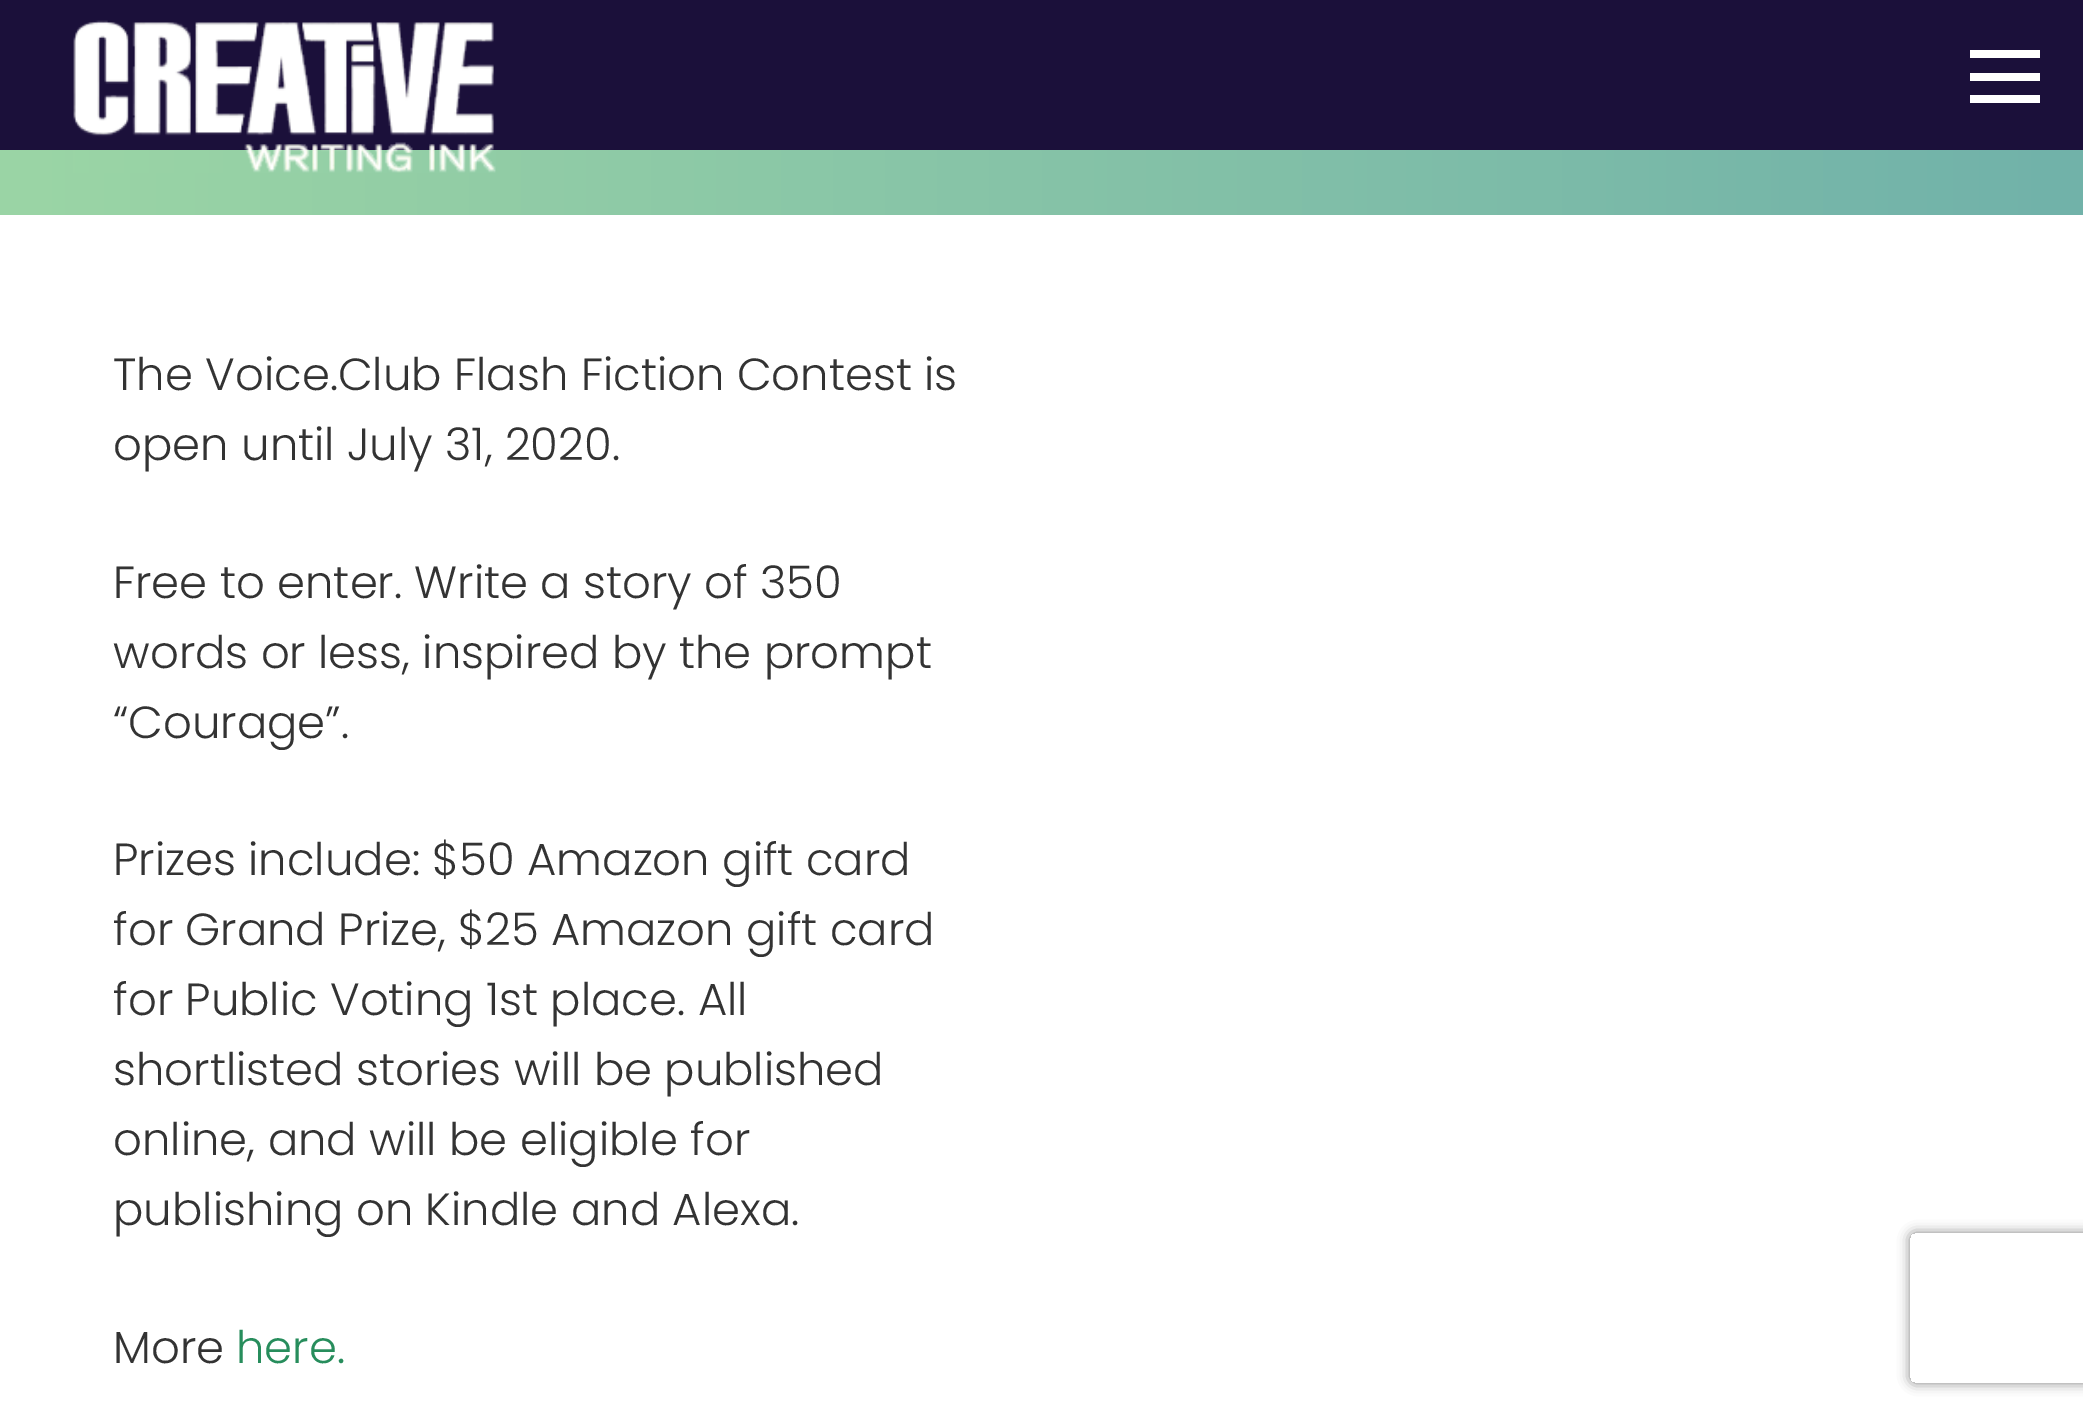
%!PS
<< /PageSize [2083 1416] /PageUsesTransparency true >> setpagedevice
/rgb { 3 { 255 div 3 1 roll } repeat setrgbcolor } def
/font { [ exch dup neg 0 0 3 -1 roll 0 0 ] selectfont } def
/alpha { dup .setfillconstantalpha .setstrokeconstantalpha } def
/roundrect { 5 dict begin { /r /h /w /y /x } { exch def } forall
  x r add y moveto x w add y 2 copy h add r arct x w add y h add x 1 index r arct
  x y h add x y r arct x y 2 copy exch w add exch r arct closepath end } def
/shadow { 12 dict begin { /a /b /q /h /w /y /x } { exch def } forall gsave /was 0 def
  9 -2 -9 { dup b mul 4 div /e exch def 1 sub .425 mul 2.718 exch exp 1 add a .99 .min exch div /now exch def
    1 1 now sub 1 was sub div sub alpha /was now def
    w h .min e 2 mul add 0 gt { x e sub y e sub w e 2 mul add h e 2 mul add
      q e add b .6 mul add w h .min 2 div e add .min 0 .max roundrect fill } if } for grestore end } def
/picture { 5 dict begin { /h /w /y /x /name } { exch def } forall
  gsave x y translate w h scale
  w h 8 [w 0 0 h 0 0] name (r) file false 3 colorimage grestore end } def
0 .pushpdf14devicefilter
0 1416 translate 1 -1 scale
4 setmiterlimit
255 255 255 rgb
0 0 2083 1416 rectfill
27 16 58 rgb
0 0 2083 150 rectfill
gsave 0 150 moveto 2083 150 lineto 2083 215 lineto 0 215 lineto closepath clip newpath
<< /ShadingType 2 /ColorSpace /DeviceRGB /Coords [0 -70 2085 -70] /Extend [true true] /Function << /FunctionType 2 /Domain [0 1] /C0 [0.608 0.835 0.647] /C1 [0.443 0.698 0.663] /N 1 >> >> shfill grestore
(img/1.rgb) 73 20 423 153 picture
[
  [1970 73 70 8 255 255 255]
  [1970 50 70 8 255 255 255]
  [1970 95 70 8 255 255 255]
] { aload pop rgb rectfill } forall
gsave
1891 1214 moveto 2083 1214 lineto 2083 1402 lineto 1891 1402 lineto closepath 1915 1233 moveto 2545 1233 lineto 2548 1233 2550 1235 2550 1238 curveto 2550 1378 lineto 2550 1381 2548 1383 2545 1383 curveto 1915 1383 lineto 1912 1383 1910 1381 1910 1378 curveto 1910 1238 lineto 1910 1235 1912 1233 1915 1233 curveto closepath eoclip newpath
128 128 128 rgb
1910 1233 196 150 5 6 1 shadow
grestore
/Poppins-Light 45 font
51 51 51 rgb
[
  [(The Voice.Club Flash Fiction Contest is) 113 390]
  [(open until July 31, 2020.) 113 460]
  [(Free to enter. Write a story of 350) 113 598]
  [(words or less, inspired by the prompt) 113 668]
  [(“Courage”.) 113 738]
  [(Prizes include: $50 Amazon gift card) 113 875]
  [(for Grand Prize, $25 Amazon gift card) 113 945]
  [(for Public Voting 1st place. All) 113 1015]
  [(shortlisted stories will be published) 113 1085]
  [(online, and will be eligible for) 113 1155]
  [(publishing on Kindle and Alexa.) 113 1225]
  [(More) 113 1363]
] { aload pop moveto show } forall
39 141 92 rgb
236 1363 moveto (here.) show
.poppdf14devicefilter showpage
